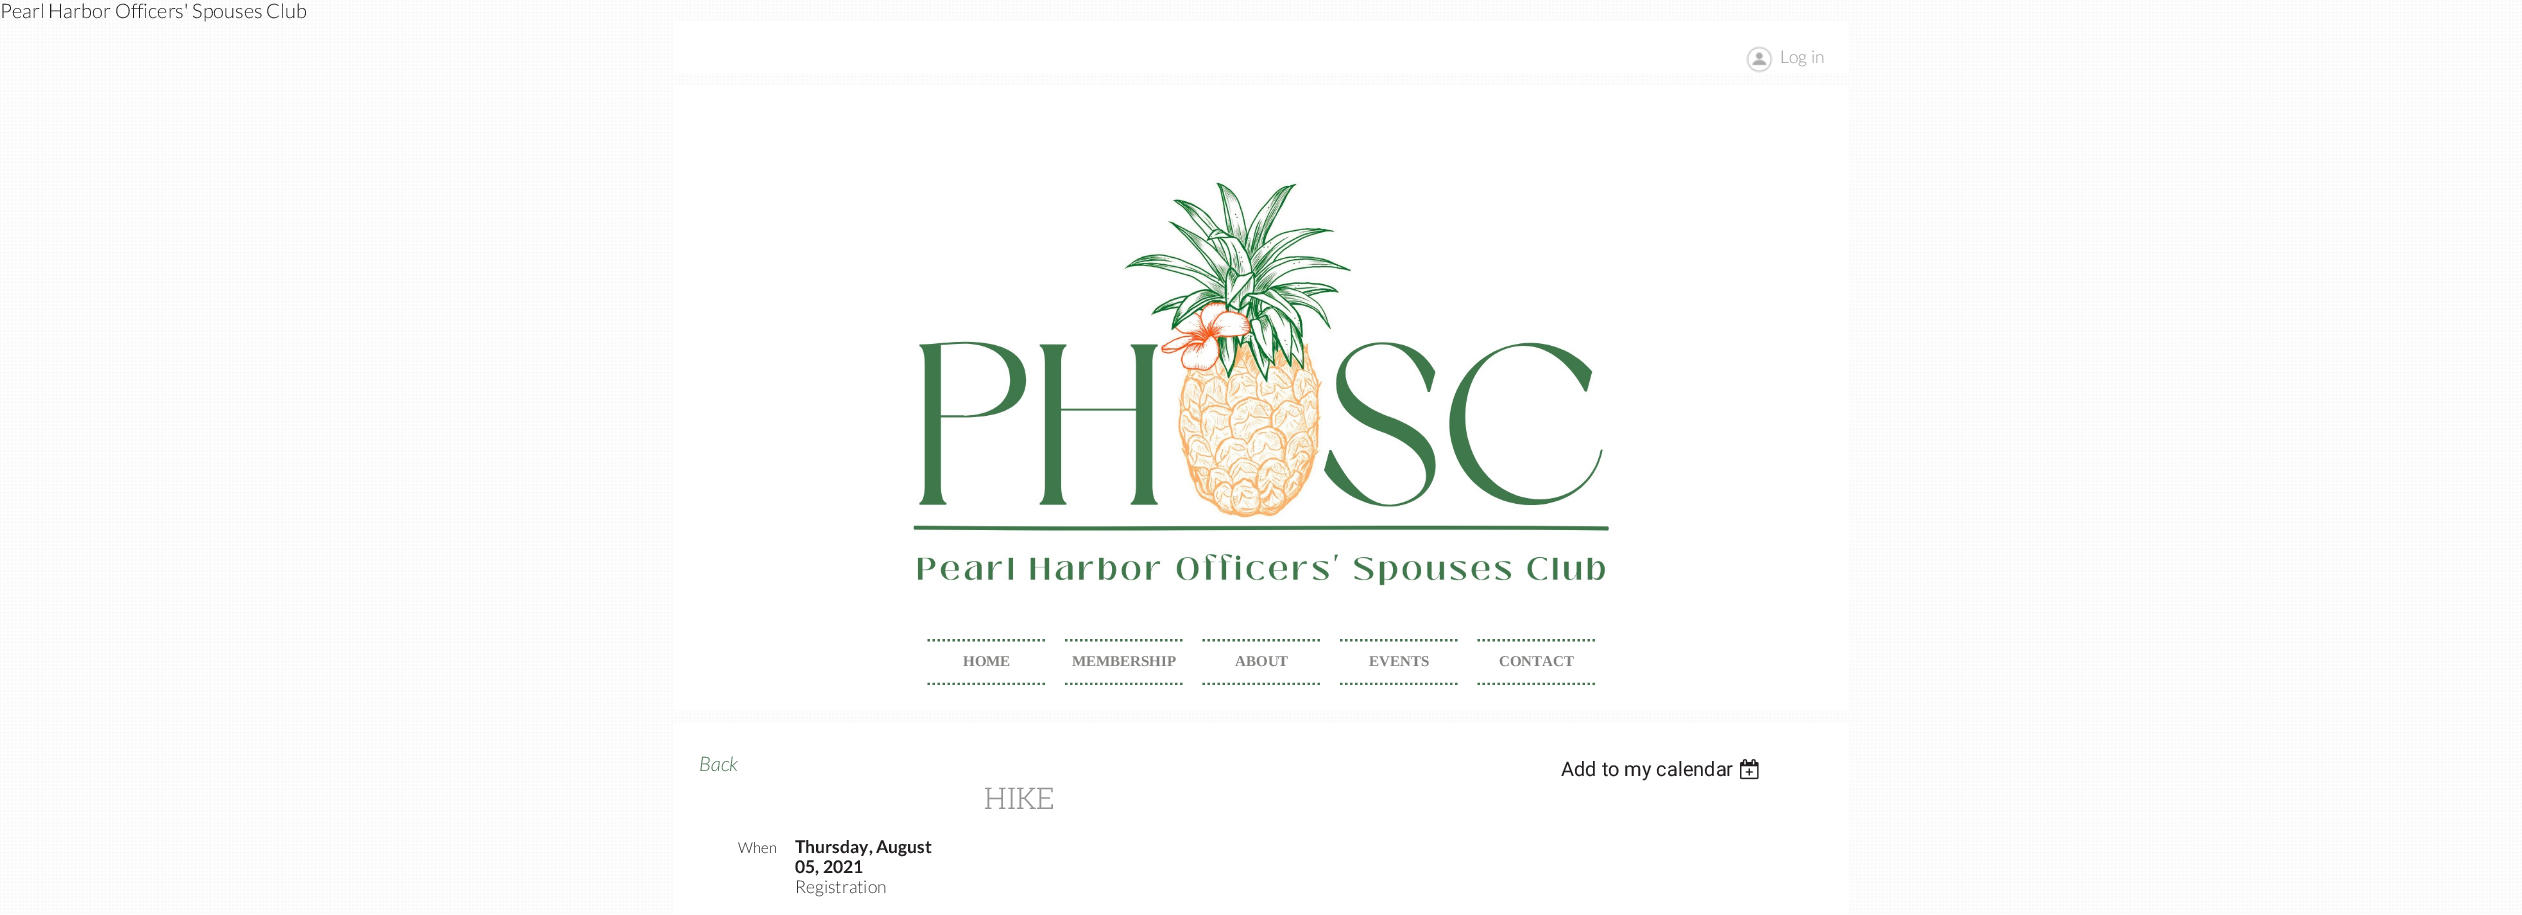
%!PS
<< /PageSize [2522 915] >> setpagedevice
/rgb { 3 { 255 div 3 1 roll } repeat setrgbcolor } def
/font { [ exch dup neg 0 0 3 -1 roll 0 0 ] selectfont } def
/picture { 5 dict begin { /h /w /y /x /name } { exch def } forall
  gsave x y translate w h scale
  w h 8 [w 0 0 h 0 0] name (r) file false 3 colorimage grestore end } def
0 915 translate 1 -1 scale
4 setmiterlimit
255 255 255 rgb
0 0 2522 915 rectfill
(img/1.rgb) 0 0 2522 915 picture
674 21 1175 52 rectfill
(img/2.rgb) 1746 46 27 27 picture
674 86 1175 624 rectfill
(img/3.rgb) 912 180 698 406 picture
gsave
918 639 687 46 rectclip
72 115 82 rgb
2.5 setlinewidth
[2.5 2.5] 0 setdash
927.5 640 moveto 1045 640 lineto stroke
927.5 684 moveto 1045 684 lineto stroke
1065 640 moveto 1182.5 640 lineto stroke
1065 684 moveto 1182.5 684 lineto stroke
1202.5 640 moveto 1320 640 lineto stroke
1202.5 684 moveto 1320 684 lineto stroke
1340 640 moveto 1457.5 640 lineto stroke
1340 684 moveto 1457.5 684 lineto stroke
1477.5 640 moveto 1595 640 lineto stroke
1477.5 684 moveto 1595 684 lineto stroke
grestore
674 724 1175 190 rectfill
(img/4.rgb) 1740 759 19 21 picture
/Lato-Light 20 font
34 30 31 rgb
0 18 moveto (Pearl Harbor Officers' Spouses Club) show
/Lato-Light 17.5 font
148 148 147 rgb
1780 63 moveto (Log in) show
/LiberationSerif-Bold 15 font
130 130 128 rgb
[
  [(HOME) 963 666]
  [(MEMBERSHIP) 1072 666]
  [(ABOUT) 1235 666]
  [(EVENTS) 1369 666]
  [(CONTACT) 1499 666]
] { aload pop moveto show } forall
/Lato-LightItalic 20 font
72 115 82 rgb
699 771 moveto (Back) show
/Roboto-Regular 20 font
34 30 31 rgb
1561 776 moveto (Add to my calendar) show
/RobotoSlab-Light 30 font
148 148 147 rgb
984 809 moveto (HIKE) show
/Lato-Light 15 font
34 30 31 rgb
738 853 moveto (When) show
/Lato-Bold 17.5 font
795 853 moveto (Thursday, August) show
795 873 moveto (05, 2021) show
/Lato-Light 17.5 font
51 51 51 rgb
795 893 moveto (Registration) show
showpage
